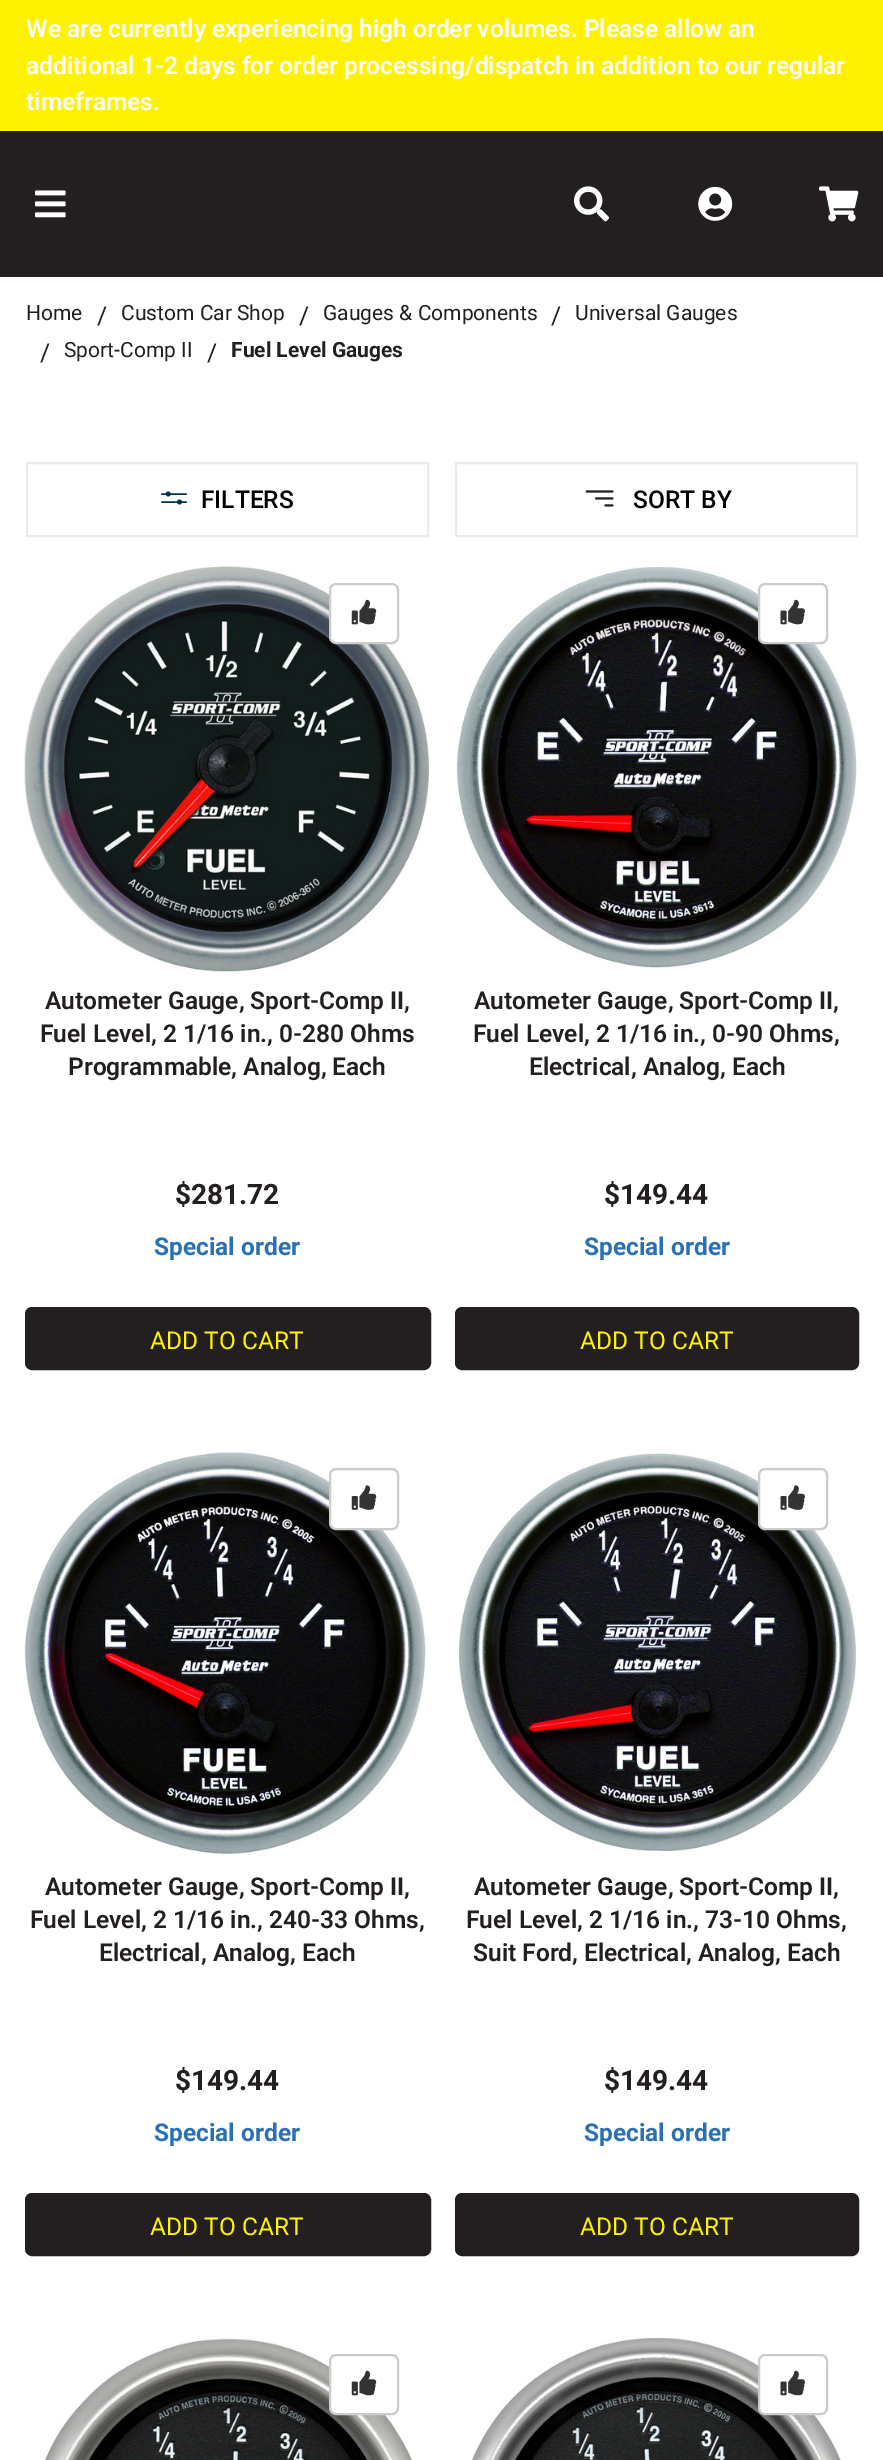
%!PS
<< /PageSize [883 2460] >> setpagedevice
/rgb { 3 { 255 div 3 1 roll } repeat setrgbcolor } def
/font { [ exch dup neg 0 0 3 -1 roll 0 0 ] selectfont } def
/circle { newpath 0 360 arc closepath } def
/roundrect { 5 dict begin { /r /h /w /y /x } { exch def } forall
  x r add y moveto x w add y 2 copy h add r arct x w add y h add x 1 index r arct
  x y h add x y r arct x y 2 copy exch w add exch r arct closepath end } def
/picture { 5 dict begin { /h /w /y /x /name } { exch def } forall
  gsave x y translate w h scale
  w h 8 [w 0 0 h 0 0] name (r) file false 3 colorimage grestore end } def
0 2460 translate 1 -1 scale
4 setmiterlimit
255 255 255 rgb
0 0 883 2460 rectfill
254 242 0 rgb
0 0 883 131 rectfill
35 31 32 rgb
0 131 883 146 rectfill
(img/1.rgb) 35 190 31 28 picture
(img/2.rgb) 574 186 35 36 picture
(img/3.rgb) 698 186 35 35 picture
(img/4.rgb) 819 186 40 36 picture
234 234 234 rgb
2 setlinewidth
27 463 401 73 rectstroke
0 51 74 rgb
1.6 setlinewidth
1 setlinecap
162 494 moveto 186 494 lineto 162 502 moveto 186 502 lineto stroke
168.2 494 2.4 circle fill
179.5 502 2.4 circle fill
234 234 234 rgb
2 setlinewidth
0 setlinecap
456 463 401 73 rectstroke
(img/5.rgb) 585 490 29 17 picture
(img/7.rgb) 24 566 406 406 picture
255 255 255 rgb
330 584 68 59 6 roundrect gsave fill grestore
204 204 204 rgb
stroke
(img/6.rgb) 351 599 26 26 picture
35 31 32 rgb
26 1308 404 61 6 roundrect gsave fill grestore
stroke
(img/9.rgb) 455 566 402 402 picture
255 255 255 rgb
759 584 68 59 6 roundrect gsave fill grestore
204 204 204 rgb
stroke
(img/8.rgb) 780 599 25 26 picture
35 31 32 rgb
456 1308 402 61 6 roundrect gsave fill grestore
stroke
(img/11.rgb) 24 1452 402 403 picture
255 255 255 rgb
330 1469 68 60 6 roundrect gsave fill grestore
204 204 204 rgb
stroke
(img/10.rgb) 351 1485 26 25 picture
35 31 32 rgb
26 2194 404 61 6 roundrect gsave fill grestore
stroke
(img/13.rgb) 457 1452 399 400 picture
255 255 255 rgb
759 1469 68 60 6 roundrect gsave fill grestore
204 204 204 rgb
stroke
(img/12.rgb) 780 1485 25 25 picture
35 31 32 rgb
456 2194 402 61 6 roundrect gsave fill grestore
stroke
(img/14.rgb) 44 2338 368 122 picture
255 255 255 rgb
330 2355 68 59 6 roundrect gsave fill grestore
204 204 204 rgb
stroke
(img/6.rgb) 351 2370 26 26 picture
(img/15.rgb) 472 2337 369 123 picture
255 255 255 rgb
759 2355 68 59 6 roundrect gsave fill grestore
204 204 204 rgb
stroke
(img/8.rgb) 780 2370 25 26 picture
/Roboto-SemiBold 24.5 font
255 255 255 rgb
[
  [(We are currently experiencing high order volumes. Please allow an) 26 37]
  [(additional 1-2 days for order processing/dispatch in addition to our regular) 26 74]
  [(timeframes.) 26 110]
] { aload pop moveto show } forall
/Roboto-Regular 21 font
35 31 32 rgb
26 320 moveto (Home) show
/Roboto-Regular 24.5 font
97 324 moveto (/) show
/Roboto-Regular 21 font
121 320 moveto (Custom Car Shop) show
/Roboto-Regular 24.5 font
299 324 moveto (/) show
/Roboto-Regular 21 font
323 320 moveto (Gauges & Components) show
/Roboto-Regular 24.5 font
551 324 moveto (/) show
/Roboto-Regular 21 font
575 320 moveto (Universal Gauges) show
/Roboto-Regular 24.5 font
40 361 moveto (/) show
/Roboto-Regular 21 font
64 357 moveto (Sport-Comp II) show
/Roboto-Regular 24.5 font
207 361 moveto (/) show
/Roboto-Bold 21 font
231 357 moveto (Fuel Level Gauges) show
/Roboto-Medium 24.5 font
0 0 0 rgb
201 508 moveto (FILTERS) show
633 508 moveto (SORT BY) show
/Roboto-SemiBold 24.5 font
35 31 32 rgb
[
  [(Autometer Gauge, Sport-Comp II,) 45 1009]
  [(Fuel Level, 2 1/16 in., 0-280 Ohms) 40 1042]
  [(Programmable, Analog, Each) 68 1075]
] { aload pop moveto show } forall
/Roboto-Bold 28 font
175 1204 moveto ($281.72) show
/Roboto-Bold 24.5 font
42 113 180 rgb
154 1255 moveto (Special order) show
/Roboto-Regular 24.5 font
254 242 0 rgb
150 1349 moveto (ADD TO CART) show
/Roboto-SemiBold 24.5 font
35 31 32 rgb
[
  [(Autometer Gauge, Sport-Comp II,) 474 1009]
  [(Fuel Level, 2 1/16 in., 0-90 Ohms,) 473 1042]
  [(Electrical, Analog, Each) 529 1075]
] { aload pop moveto show } forall
/Roboto-Bold 28 font
604 1204 moveto ($149.44) show
/Roboto-Bold 24.5 font
42 113 180 rgb
584 1255 moveto (Special order) show
/Roboto-Regular 24.5 font
254 242 0 rgb
580 1349 moveto (ADD TO CART) show
/Roboto-SemiBold 24.5 font
35 31 32 rgb
[
  [(Autometer Gauge, Sport-Comp II,) 45 1895]
  [(Fuel Level, 2 1/16 in., 240-33 Ohms,) 30 1928]
  [(Electrical, Analog, Each) 99 1961]
] { aload pop moveto show } forall
/Roboto-Bold 28 font
175 2090 moveto ($149.44) show
/Roboto-Bold 24.5 font
42 113 180 rgb
154 2141 moveto (Special order) show
/Roboto-Regular 24.5 font
254 242 0 rgb
150 2235 moveto (ADD TO CART) show
/Roboto-SemiBold 24.5 font
35 31 32 rgb
[
  [(Autometer Gauge, Sport-Comp II,) 474 1895]
  [(Fuel Level, 2 1/16 in., 73-10 Ohms,) 466 1928]
  [(Suit Ford, Electrical, Analog, Each) 473 1961]
] { aload pop moveto show } forall
/Roboto-Bold 28 font
604 2090 moveto ($149.44) show
/Roboto-Bold 24.5 font
42 113 180 rgb
584 2141 moveto (Special order) show
/Roboto-Regular 24.5 font
254 242 0 rgb
580 2235 moveto (ADD TO CART) show
showpage
